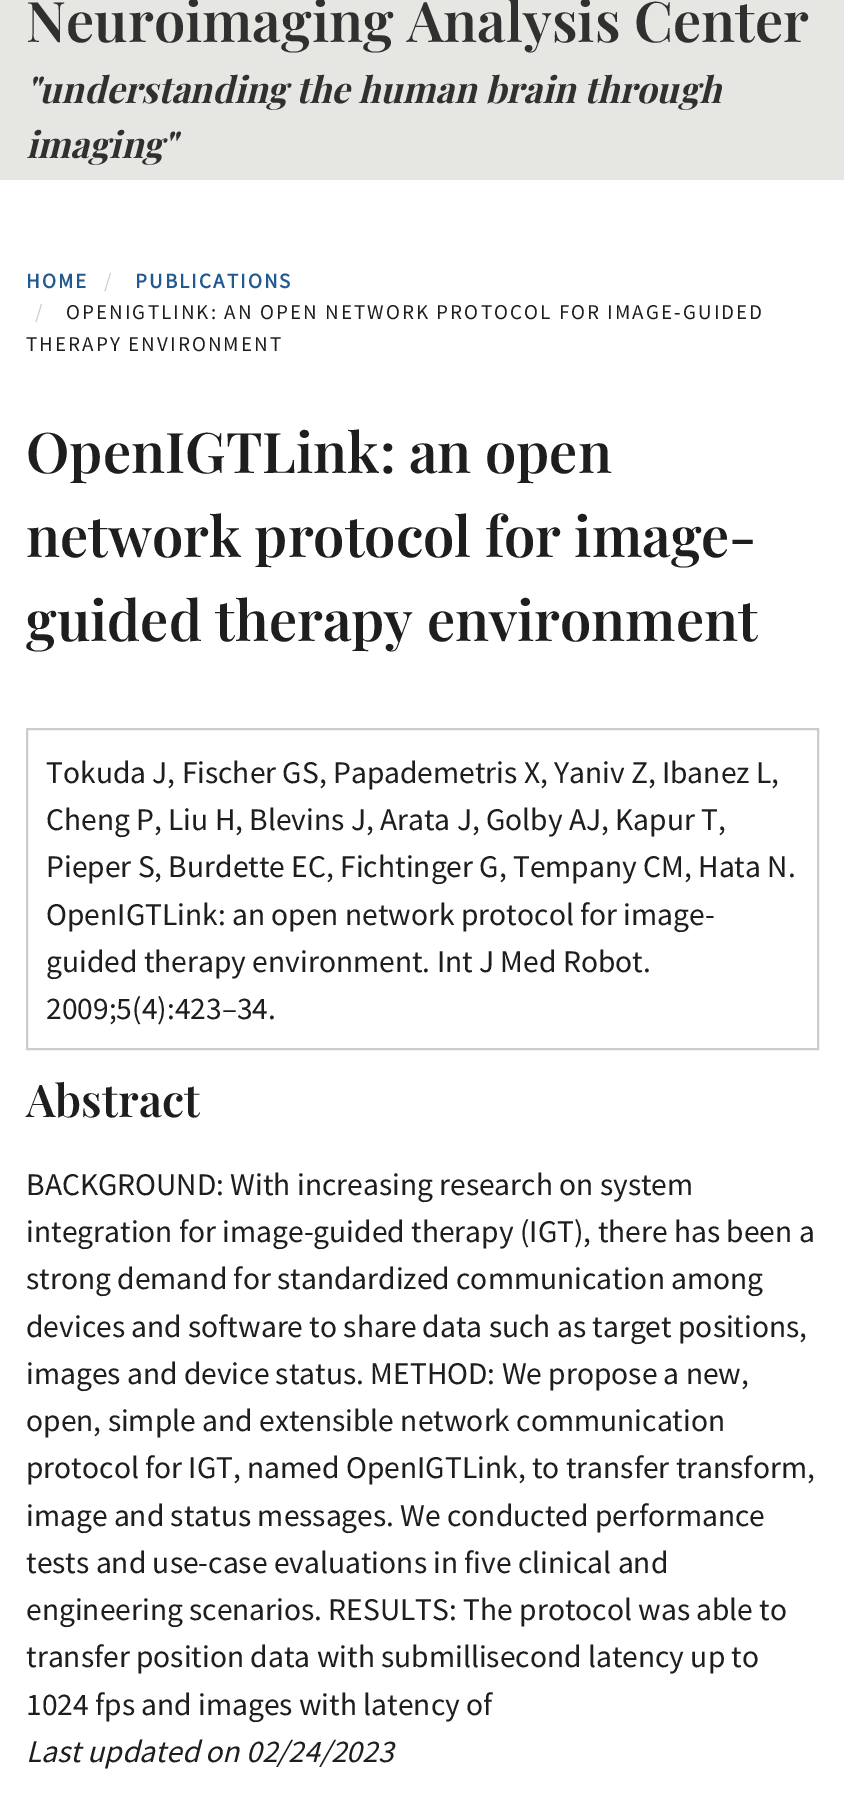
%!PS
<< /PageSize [844 1800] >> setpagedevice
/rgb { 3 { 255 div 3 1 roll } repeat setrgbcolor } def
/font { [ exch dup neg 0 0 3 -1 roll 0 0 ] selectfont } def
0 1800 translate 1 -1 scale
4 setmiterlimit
255 255 255 rgb
0 0 844 1800 rectfill
230 230 227 rgb
0 0 844 180 rectfill
204 204 204 rgb
2 setlinewidth
27 729 791 320 rectstroke
/PlayfairDisplay-SemiBold 56 font
48 48 48 rgb
26 42 moveto (Neuroimaging Analysis Center) show
/PlayfairDisplay-BoldItalic 36.4 font
26 103 moveto ("understanding the human brain through) show
26 158 moveto (imaging") show
/SourceSansPro-Bold 21 font
33 89 144 rgb
26 288 moveto 2.1 0 (HOME) ashow
/SourceSansPro-Regular 21 font
204 204 204 rgb
104 288 moveto 2.1 0 (/) ashow
/SourceSansPro-Bold 21 font
33 89 144 rgb
135 288 moveto 2.1 0 (PUBLICATIONS) ashow
/SourceSansPro-Regular 21 font
204 204 204 rgb
35 319 moveto 2.1 0 (/) ashow
30 30 30 rgb
66 319 moveto 2.1 0 (OPENIGTLINK: AN OPEN NETWORK PROTOCOL FOR IMAGE-GUIDED) ashow
26 351 moveto 2.1 0 (THERAPY ENVIRONMENT) ashow
/PlayfairDisplay-SemiBold 56 font
[
  [(OpenIGTLink: an open) 26 473]
  [(network protocol for image-) 26 557]
  [(guided therapy environment) 26 641]
] { aload pop moveto show } forall
/SourceSansPro-Regular 31.5 font
[
  [(Tokuda J, Fischer GS, Papademetris X, Yaniv Z, Ibanez L,) 46 783]
  [(Cheng P, Liu H, Blevins J, Arata J, Golby AJ, Kapur T,) 46 830]
  [(Pieper S, Burdette EC, Fichtinger G, Tempany CM, Hata N.) 46 877]
  [(OpenIGTLink: an open network protocol for image-) 46 925]
  [(guided therapy environment. Int J Med Robot.) 46 972]
  [(2009;5\(4\):423–34.) 46 1019]
] { aload pop moveto show } forall
/PlayfairDisplay-SemiBold 45 font
26 1117 moveto (Abstract) show
/SourceSansPro-Regular 31.5 font
[
  [(BACKGROUND: With increasing research on system) 26 1195]
  [(integration for image-guided therapy \(IGT\), there has been a) 26 1242]
  [(strong demand for standardized communication among) 26 1289]
  [(devices and software to share data such as target positions,) 26 1337]
  [(images and device status. METHOD: We propose a new,) 26 1384]
  [(open, simple and extensible network communication) 26 1431]
  [(protocol for IGT, named OpenIGTLink, to transfer transform,) 26 1478]
  [(image and status messages. We conducted performance) 26 1526]
  [(tests and use-case evaluations in five clinical and) 26 1573]
  [(engineering scenarios. RESULTS: The protocol was able to) 26 1620]
  [(transfer position data with submillisecond latency up to) 26 1667]
  [(1024 fps and images with latency of) 26 1715]
] { aload pop moveto show } forall
/SourceSansPro-Italic 31.5 font
26 1762 moveto (Last updated on 02/24/2023) show
showpage
